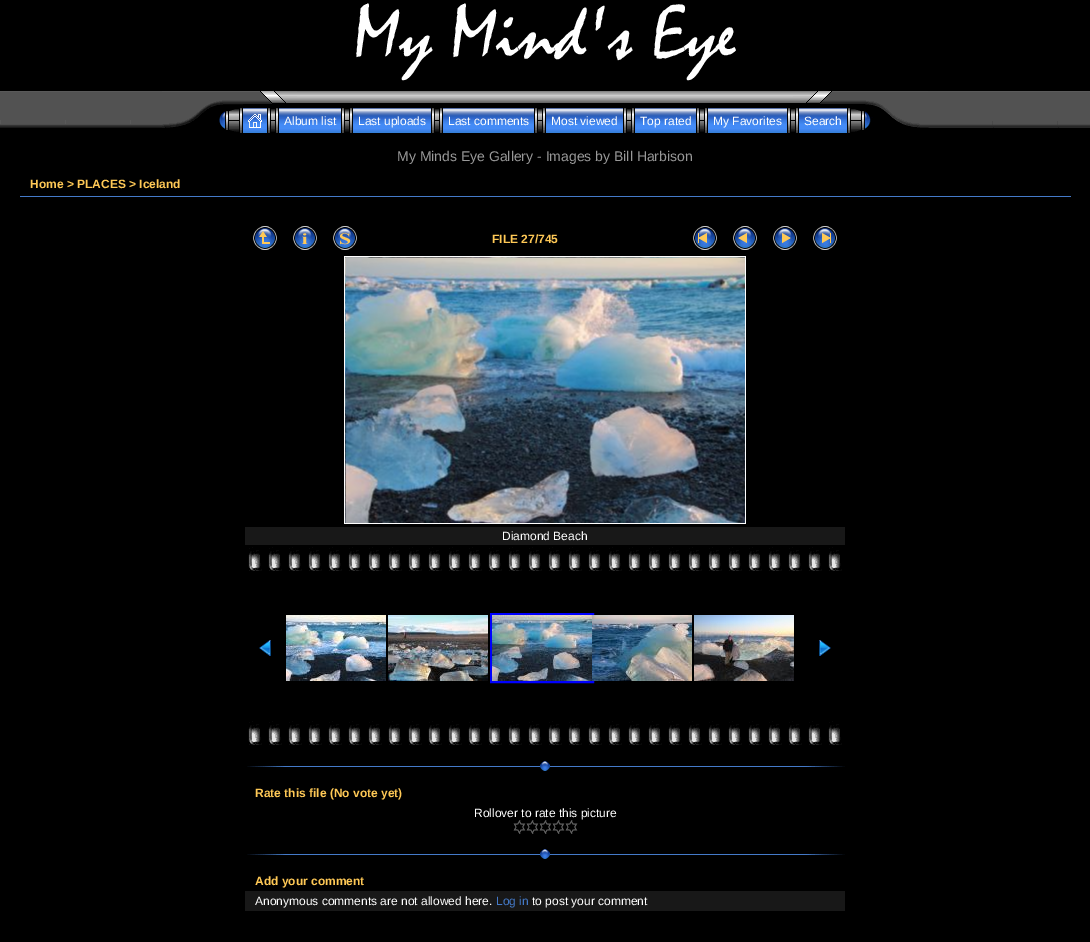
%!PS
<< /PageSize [1090 942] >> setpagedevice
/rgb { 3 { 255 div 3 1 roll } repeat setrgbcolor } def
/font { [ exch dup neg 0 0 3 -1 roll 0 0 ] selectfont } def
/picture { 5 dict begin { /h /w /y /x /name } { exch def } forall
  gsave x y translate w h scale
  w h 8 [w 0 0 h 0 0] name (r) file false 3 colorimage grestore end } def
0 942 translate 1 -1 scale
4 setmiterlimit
0 0 0 rgb
0 0 1090 942 rectfill
(img/1.rgb) 0 91 162 37 picture
(img/2.rgb) 162 91 135 17 picture
(img/3.rgb) 297 91 496 12 picture
(img/4.rgb) 793 91 135 17 picture
(img/5.rgb) 162 108 47 20 picture
(img/6.rgb) 219 108 23 25 picture
(img/7.rgb) 243 108 24 25 picture
(img/8.rgb) 248 114 14 14 picture
(img/9.rgb) 268 108 10 25 picture
(img/10.rgb) 279 108 62 25 picture
(img/9.rgb) 342 108 10 25 picture
(img/11.rgb) 353 108 78 25 picture
(img/9.rgb) 432 108 10 25 picture
(img/12.rgb) 443 108 91 25 picture
(img/9.rgb) 535 108 10 25 picture
(img/13.rgb) 546 108 77 25 picture
(img/9.rgb) 624 108 10 25 picture
(img/14.rgb) 635 108 61 25 picture
(img/9.rgb) 697 108 10 25 picture
(img/15.rgb) 708 108 79 25 picture
(img/9.rgb) 788 108 10 25 picture
(img/16.rgb) 799 108 48 25 picture
(img/17.rgb) 847 108 26 25 picture
(img/18.rgb) 881 108 47 20 picture
(img/19.rgb) 928 91 162 37 picture
68 122 201 rgb
20 196 1051 1 rectfill
(img/20.rgb) 253 226 24 24 picture
(img/21.rgb) 293 226 24 24 picture
(img/22.rgb) 333 226 24 24 picture
(img/23.rgb) 693 226 24 24 picture
(img/24.rgb) 733 226 24 24 picture
(img/25.rgb) 773 226 24 24 picture
(img/26.rgb) 813 226 24 24 picture
(img/27.rgb) 345 257 400 266 picture
[
  [344 256 402 1 255 255 255]
  [745 256 1 268 255 255 255]
  [344 523 402 1 255 255 255]
  [344 256 1 268 255 255 255]
  [245 527 600 18 24 24 24]
] { aload pop rgb rectfill } forall
(img/28.rgb) 248 547 594 24 picture
(img/29.rgb) 259 640 12 16 picture
(img/30.rgb) 286 615 100 66 picture
(img/31.rgb) 388 615 100 66 picture
0 0 255 rgb
2 setlinewidth
491 614 102 68 rectstroke
(img/32.rgb) 492 615 100 66 picture
(img/33.rgb) 592 615 100 66 picture
(img/34.rgb) 694 615 100 66 picture
(img/35.rgb) 819 640 12 16 picture
(img/28.rgb) 248 721 594 24 picture
(img/36.rgb) 247 766 38 1 picture
68 122 201 rgb
285 766 520 1 rectfill
(img/37.rgb) 540 761 10 10 picture
(img/38.rgb) 805 766 40 1 picture
(img/39.rgb) 513 820 13 14 picture
(img/39.rgb) 526 820 13 14 picture
(img/39.rgb) 539 820 13 14 picture
(img/39.rgb) 552 820 13 14 picture
(img/39.rgb) 565 820 13 14 picture
(img/36.rgb) 247 854 38 1 picture
285 854 520 1 rectfill
(img/37.rgb) 540 849 10 10 picture
(img/38.rgb) 805 854 40 1 picture
24 24 24 rgb
245 891 600 20 rectfill
/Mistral-Regular 77 font
255 255 255 rgb
354 58 moveto (My Mind's Eye) show
/LiberationSans-Regular 12 font
[
  [(Album list) 284 125]
  [(Last uploads) 358 125]
  [(Last comments) 448 125]
  [(Most viewed) 551 125]
  [(Top rated) 640 125]
  [(My Favorites) 713 125]
  [(Search) 804 125]
] { aload pop moveto show } forall
/LiberationSans-Regular 14 font
153 153 153 rgb
397 161 moveto (My Minds Eye Gallery - Images by Bill Harbison) show
/LiberationSans-Bold 12 font
255 201 86 rgb
30 188 moveto (Home > PLACES > Iceland) show
492 243 moveto (FILE 27/745) show
/LiberationSans-Regular 12 font
255 255 255 rgb
502 540 moveto (Diamond Beach) show
/LiberationSans-Bold 12 font
255 201 86 rgb
255 797 moveto (Rate this file \(No vote yet\)) show
/LiberationSans-Regular 12 font
255 255 255 rgb
474 817 moveto (Rollover to rate this picture) show
/LiberationSans-Bold 12 font
255 201 86 rgb
255 885 moveto (Add your comment) show
/LiberationSans-Regular 12 font
255 255 255 rgb
255 905 moveto (Anonymous comments are not allowed here.) show
68 122 201 rgb
496 905 moveto (Log in) show
255 255 255 rgb
532 905 moveto (to post your comment) show
showpage
